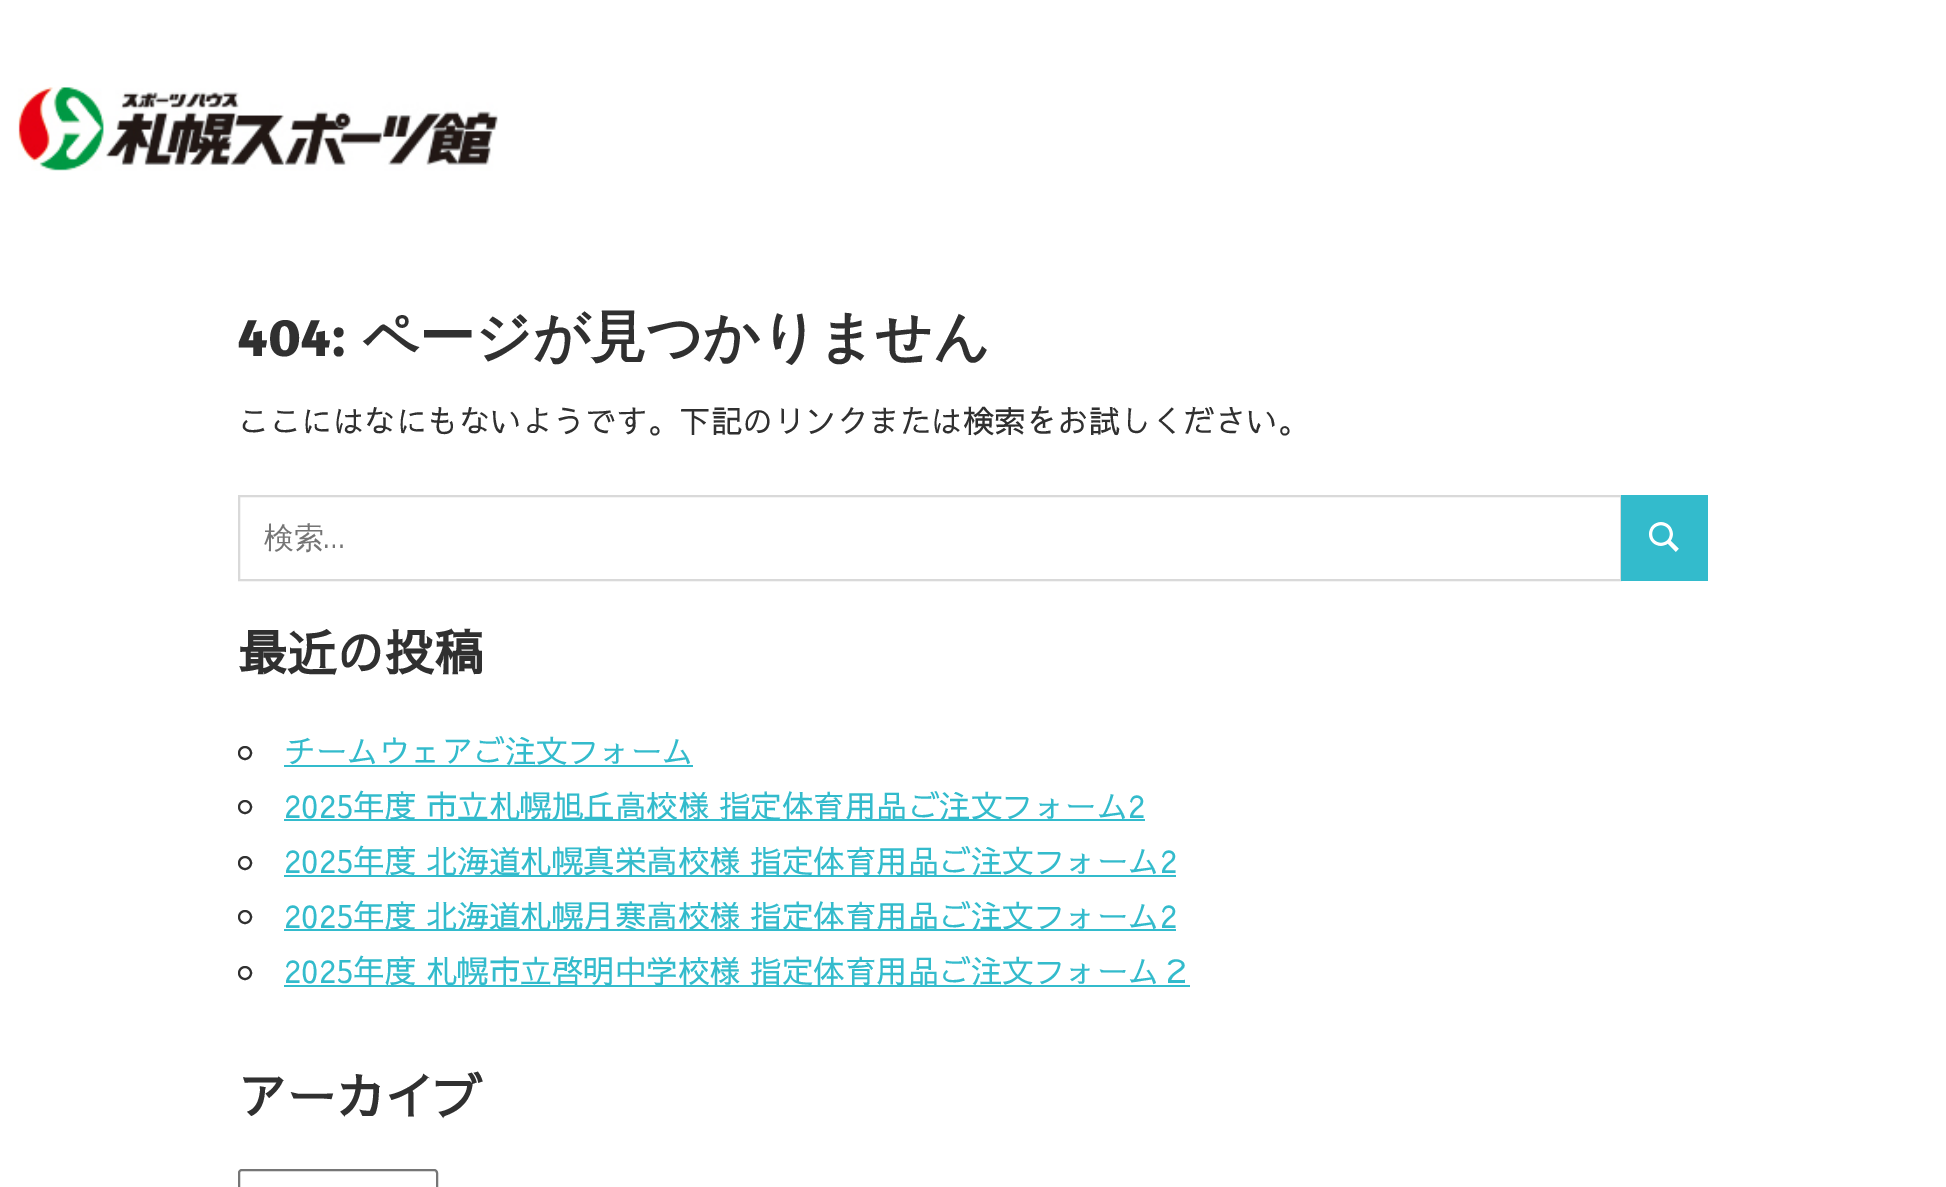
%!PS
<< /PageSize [1946 1187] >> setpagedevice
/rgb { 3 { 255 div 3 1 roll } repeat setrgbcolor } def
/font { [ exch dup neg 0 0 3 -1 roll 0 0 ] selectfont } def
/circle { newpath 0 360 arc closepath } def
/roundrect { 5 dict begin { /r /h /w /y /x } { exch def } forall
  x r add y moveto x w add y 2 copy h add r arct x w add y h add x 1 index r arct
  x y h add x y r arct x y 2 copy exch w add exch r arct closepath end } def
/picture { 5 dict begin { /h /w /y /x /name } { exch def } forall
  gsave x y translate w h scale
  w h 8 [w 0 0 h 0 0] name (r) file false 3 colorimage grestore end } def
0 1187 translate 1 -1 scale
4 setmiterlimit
255 255 255 rgb
0 0 1946 1187 rectfill
(img/1.rgb) 18 87 480 84 picture
217 217 217 rgb
2 setlinewidth
239 496 1382 84 rectstroke
51 187 204 rgb
1621 495 87 86 rectfill
(img/2.rgb) 1649 522 30 30 picture
48 48 48 rgb
245 753 6 circle stroke
51 187 204 rgb
284 765 409 2 rectfill
48 48 48 rgb
245 807 6 circle stroke
51 187 204 rgb
284 819 861 2 rectfill
48 48 48 rgb
245 863 6 circle stroke
51 187 204 rgb
284 875 892 2 rectfill
48 48 48 rgb
245 917 6 circle stroke
51 187 204 rgb
284 929 892 2 rectfill
48 48 48 rgb
245 973 6 circle stroke
51 187 204 rgb
284 985 906 2 rectfill
118 118 118 rgb
239 1170 198 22 3 roundrect stroke
/Amaranth-Bold 56 font
48 48 48 rgb
238 356 moveto (404:) show
/WenQuanYiZenHei-Bold 56 font
362 356 moveto (ページが見つかりません) show
/SawarabiGothic-Regular 31.5 font
238 433 moveto (ここにはなにもないようです。下記のリンクまたは検索をお試しください。) show
/WenQuanYiZenHei-Medium 30 font
117 117 117 rgb
264 548 moveto (検索) show
/TitilliumWeb-Regular 30 font
323 548 moveto (…) show
/SawarabiGothic-Bold 49 font
48 48 48 rgb
238 671 moveto (最近の投稿) show
/SawarabiGothic-Regular 31.5 font
51 187 204 rgb
[
  [(チームウェアご注文フォーム) 284 763]
  [(2025年度 市立札幌旭丘高校様 指定体育用品ご注文フォーム2) 284 818]
  [(2025年度 北海道札幌真栄高校様 指定体育用品ご注文フォーム2) 284 873]
  [(2025年度 北海道札幌月寒高校様 指定体育用品ご注文フォーム2) 284 928]
  [(2025年度 札幌市立啓明中学校様 指定体育用品ご注文フォーム２) 284 983]
] { aload pop moveto show } forall
/SawarabiGothic-Bold 49 font
48 48 48 rgb
238 1115 moveto (アーカイブ) show
showpage
